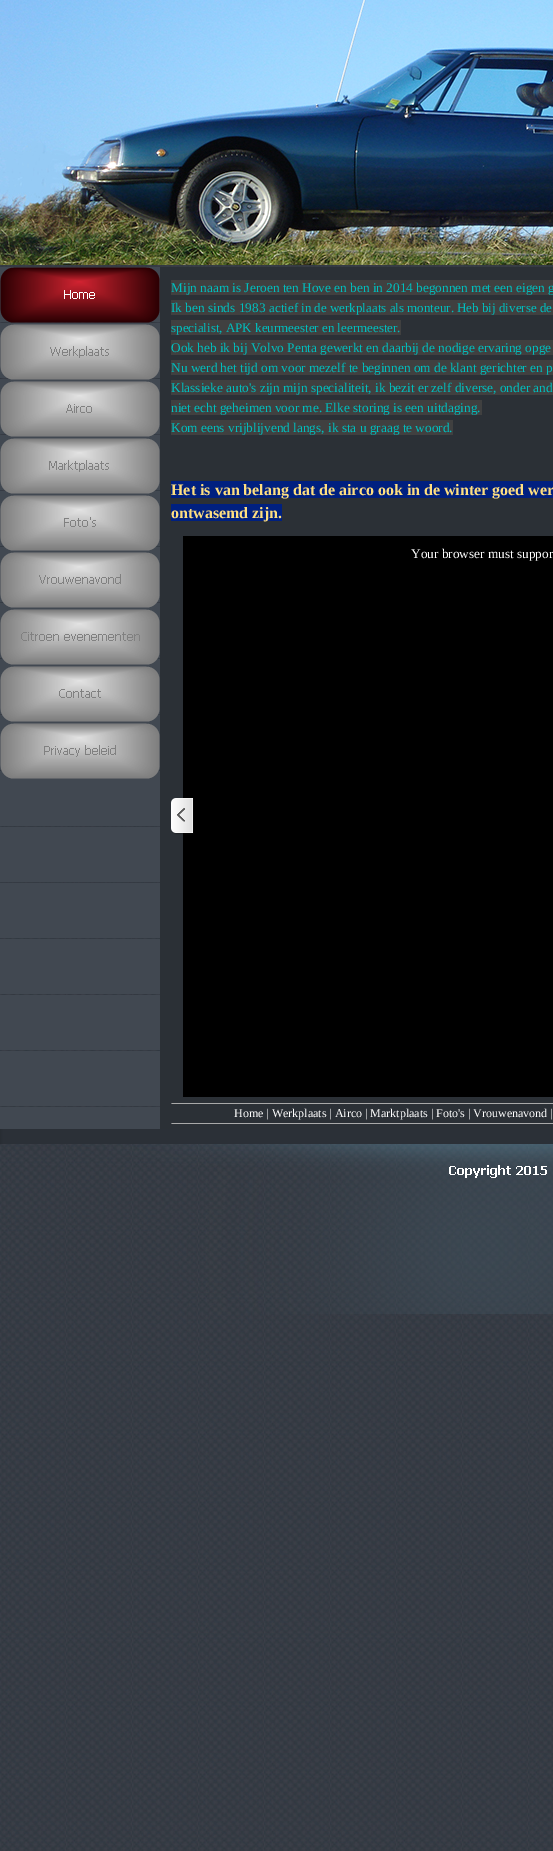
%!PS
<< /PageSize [553 1851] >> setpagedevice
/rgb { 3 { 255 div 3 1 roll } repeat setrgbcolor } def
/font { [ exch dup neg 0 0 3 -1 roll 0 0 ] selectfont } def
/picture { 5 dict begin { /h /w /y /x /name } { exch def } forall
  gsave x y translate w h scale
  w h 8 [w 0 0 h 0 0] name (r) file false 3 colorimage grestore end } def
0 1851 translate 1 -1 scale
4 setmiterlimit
255 255 255 rgb
0 0 553 1851 rectfill
(img/1.rgb) 0 265 553 1586 picture
(img/2.rgb) 0 0 553 265 picture
(img/3.rgb) 0 267 160 862 picture
(img/4.rgb) 0 267 160 56 picture
(img/5.rgb) 0 324 160 56 picture
(img/6.rgb) 0 381 160 56 picture
(img/7.rgb) 0 438 160 56 picture
(img/8.rgb) 0 495 160 56 picture
(img/9.rgb) 0 552 160 56 picture
(img/10.rgb) 0 609 160 56 picture
(img/11.rgb) 0 666 160 56 picture
(img/12.rgb) 0 723 160 56 picture
[
  [160 267 393 862 43 48 54]
  [171 280 382 15 64 64 64]
  [171 300 382 15 64 64 64]
  [171 320 230 15 64 64 64]
  [171 340 382 15 64 64 64]
  [171 360 382 15 64 64 64]
  [171 380 382 15 64 64 64]
  [171 400 311 15 64 64 64]
  [171 420 282 15 64 64 64]
  [171 481 382 17 0 32 128]
  [171 504 111 17 0 32 128]
  [183 536 370 561 0 0 0]
] { aload pop rgb rectfill } forall
(img/13.rgb) 171 798 23 37 picture
169 169 169 rgb
171 1103 moveto 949 1103 lineto 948 1104 lineto 172 1104 lineto closepath fill
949 1124 moveto 171 1124 lineto 172 1123 lineto 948 1123 lineto closepath fill
(img/14.rgb) 0 1129 553 185 picture
/LiberationSerif-Regular 13.3 font
0 191 191 rgb
171 292 moveto (Mijn naam is Jeroen ten Hove en ben in 2014 begonnen met een eigen g) show
171 312 moveto (Ik ben sinds 1983) show
/LiberationSerif-Regular 13 font
269 312 moveto (actief in de werkplaats als monteur. Heb bij diverse de) show
171 332 moveto (specialist, APK keurmeester en leermeester.) show
/LiberationSerif-Regular 13.3 font
[
  [(Ook heb ik bij Volvo Penta gewerkt en daarbij de nodige ervaring opge) 171 352]
  [(Nu werd het tijd om voor mezelf te beginnen om de klant gerichter en p) 171 372]
  [(Klassieke auto's zijn mijn specialiteit, ik bezit er zelf diverse, onder and) 171 392]
  [(niet echt geheimen voor me. Elke storing is een uitdaging.) 171 412]
  [(Kom eens vrijblijvend langs, ik sta u graag te woord.) 171 432]
] { aload pop moveto show } forall
/LiberationSerif-Bold 16 font
255 223 128 rgb
171 495 moveto (Het is van belang dat de airco ook in de winter goed wer) show
171 518 moveto (ontwasemd zijn.) show
/LiberationSerif-Regular 13.3 font
255 255 255 rgb
411 558 moveto (Your browser must suppor) show
/LiberationSerif-Regular 12 font
234 1117 moveto (Home | Werkplaats | Airco | Marktplaats | Foto's | Vrouwenavond |) show
showpage
